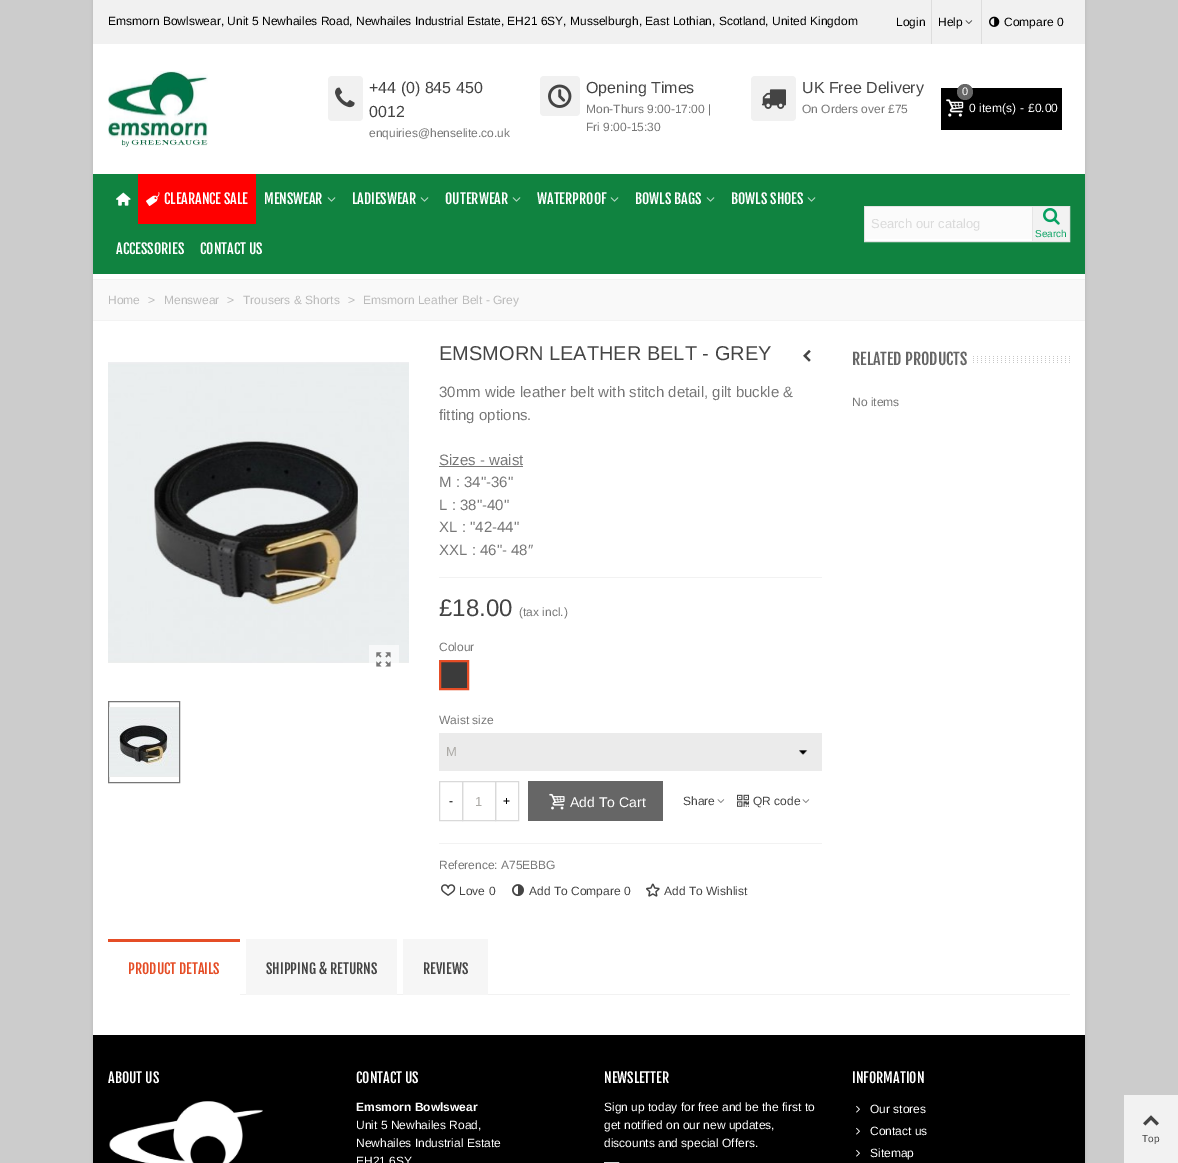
%!PS
<< /PageSize [1178 1163] /PageUsesTransparency true >> setpagedevice
/rgb { 3 { 255 div 3 1 roll } repeat setrgbcolor } def
/font { [ exch dup neg 0 0 3 -1 roll 0 0 ] selectfont } def
/alpha { dup .setfillconstantalpha .setstrokeconstantalpha } def
/circle { newpath 0 360 arc closepath } def
/roundrect { 5 dict begin { /r /h /w /y /x } { exch def } forall
  x r add y moveto x w add y 2 copy h add r arct x w add y h add x 1 index r arct
  x y h add x y r arct x y 2 copy exch w add exch r arct closepath end } def
/shadow { 12 dict begin { /a /b /q /h /w /y /x } { exch def } forall gsave /was 0 def
  9 -2 -9 { dup b mul 4 div /e exch def 1 sub .425 mul 2.718 exch exp 1 add a .99 .min exch div /now exch def
    1 1 now sub 1 was sub div sub alpha /was now def
    w h .min e 2 mul add 0 gt { x e sub y e sub w e 2 mul add h e 2 mul add
      q e add b .6 mul add w h .min 2 div e add .min 0 .max roundrect fill } if } for grestore end } def
/picture { 5 dict begin { /h /w /y /x /name } { exch def } forall
  gsave x y translate w h scale
  w h 8 [w 0 0 h 0 0] name (r) file false 3 colorimage grestore end } def
0 .pushpdf14devicefilter
0 1163 translate 1 -1 scale
4 setmiterlimit
204 204 204 rgb
0 0 1178 1163 rectfill
0 0 0 rgb
93 0 992 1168 0 1.5 0.1 shadow
[
  [93 44 992 991 255 255 255]
  [93 0 992 44 241 241 241]
  [931 0 1 44 221 221 221]
] { aload pop rgb rectfill } forall
(img/1.rgb) 965 20 8 4 picture
981 0 1 44 rectfill
(img/2.rgb) 989 16 11 11 picture
(img/3.rgb) 108 71 100 76 picture
241 241 241 rgb
328 76 35 45 4 roundrect fill
(img/4.rgb) 335 87 20 21 picture
540 76 40 40 4 roundrect fill
(img/5.rgb) 548 84 24 24 picture
751 76 45 45 4 roundrect fill
(img/6.rgb) 761 89 25 20 picture
0 0 0 rgb
941 88 121 42 rectfill
(img/7.rgb) 946 99 18 18 picture
102 102 102 rgb
965 92 8 circle fill
16 131 64 rgb
93 174 992 100 rectfill
(img/8.rgb) 116 192 15 14 picture
255 0 0 rgb
138 174 118 50 rectfill
(img/9.rgb) 146 192 14 14 picture
(img/10.rgb) 327 197 9 5 picture
(img/10.rgb) 420 197 9 5 picture
(img/10.rgb) 512 197 9 5 picture
(img/10.rgb) 610 197 9 5 picture
(img/10.rgb) 706 197 9 5 picture
(img/10.rgb) 807 197 9 5 picture
255 255 255 rgb
865 239 167 2 rectfill
229 229 229 rgb
864.5 206.5 205 35 rectstroke
[
  [865 207 167 32 251 251 251]
  [1033 207 36 34 242 242 242]
  [1032 207 1 34 229 229 229]
] { aload pop rgb rectfill } forall
(img/11.rgb) 1043 208 17 17 picture
[
  [93 280 992 40 249 249 249]
  [93 279 992 1 243 243 243]
  [93 320 992 1 243 243 243]
] { aload pop rgb rectfill } forall
(img/12.rgb) 108 362 301 301 picture
0.6 alpha
255 255 255 rgb
369 645 30 18 rectfill
1 alpha
(img/13.rgb) 376 652 15 15 picture
119 119 119 rgb
108.5 701.5 71 81 rectstroke
(img/14.rgb) 109 707 70 70 picture
(img/15.rgb) 803 350 8 12 picture
439 466 84 1 rectfill
242 242 242 rgb
439 577 383 1 rectfill
59 59 59 rgb
440 661 moveto 468 661 lineto 468 689 lineto 440 689 lineto closepath gsave fill grestore
229 77 38 rgb
2 setlinewidth
stroke
235 235 235 rgb
439 733 383 38 rectfill
(img/16.rgb) 799 750 9 5 picture
217 217 217 rgb
1 setlinewidth
439.5 781.5 23 39 rectstroke
462.5 781.5 33 39 rectstroke
495.5 781.5 23 39 rectstroke
102 102 102 rgb
528 781 135 40 rectfill
(img/17.rgb) 549 793 16 17 picture
(img/18.rgb) 717 799 8 4 picture
(img/19.rgb) 737 794 12 13 picture
(img/18.rgb) 802 799 8 4 picture
242 242 242 rgb
439 843 383 1 rectfill
(img/20.rgb) 441 884 15 12 picture
(img/21.rgb) 512 884 12 13 picture
(img/22.rgb) 646 883 14 14 picture
(img/23.rgb) 973 356 97 7 picture
[
  [240 994 830 1 242 242 242]
  [108 939 132 3 229 77 38]
  [246 939 151 56 246 246 246]
  [403 939 85 56 246 246 246]
  [93 1035 992 128 0 0 0]
] { aload pop rgb rectfill } forall
(img/24.rgb) 109 1101 154 62 picture
217 217 217 rgb
604.5 1162.5 14 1 rectstroke
(img/25.rgb) 856 1105 4 8 picture
(img/25.rgb) 856 1127 4 8 picture
(img/25.rgb) 856 1149 4 8 picture
242 242 242 rgb
1124 1095 54 68 rectfill
(img/26.rgb) 1143 1115 16 11 picture
/LiberationSans-Regular 12 font
0 0 0 rgb
[
  [(Emsmorn Bowlswear, Unit 5 Newhailes Road, Newhailes Industrial Estate, EH21 6SY, Musselburgh, East Lothian, Scotland, United Kingdom) 108 25]
  [(Login) 896 26]
  [(Help) 938 26]
  [(Compare) 1004 26]
  [(0) 1057 26]
] { aload pop moveto show } forall
/LiberationSans-Regular 16 font
68 68 68 rgb
369 93 moveto (+44 \(0\) 845 450) show
369 117 moveto (0012) show
/LiberationSans-Regular 12 font
119 119 119 rgb
369 137 moveto (enquiries@henselite.co.uk) show
/LiberationSans-Regular 16 font
68 68 68 rgb
586 93 moveto (Opening Times) show
/LiberationSans-Regular 12 font
119 119 119 rgb
586 113 moveto (Mon-Thurs 9:00-17:00 |) show
586 131 moveto (Fri 9:00-15:30) show
/LiberationSans-Regular 16 font
68 68 68 rgb
802 93 moveto (UK Free Delivery) show
/LiberationSans-Regular 12 font
119 119 119 rgb
802 113 moveto (On Orders over £75) show
/LiberationSans-Regular 11 font
255 255 255 rgb
962 95 moveto (0) show
/LiberationSans-Regular 12 font
[
  [(0) 969 112]
  [(item\(s\)) 979 112]
  [(-) 1020 112]
  [(£0.00) 1028 112]
] { aload pop moveto show } forall
/FjallaOne-Regular 14 font
[
  [(CLEARANCE SALE) 164 204]
  [(MENSWEAR) 264 204]
  [(LADIESWEAR) 352 204]
  [(OUTERWEAR) 445 204]
  [(WATERPROOF) 537 204]
  [(BOWLS BAGS) 635 204]
  [(BOWLS SHOES) 731 204]
  [(ACCESSORIES) 116 254]
  [(CONTACT US) 200 254]
] { aload pop moveto show } forall
/LiberationSans-Regular 13 font
218 218 218 rgb
871 228 moveto (Search our catalog) show
/LiberationSans-Regular 10 font
6 161 97 rgb
1035 237 moveto (Search) show
/LiberationSans-Regular 12 font
187 187 187 rgb
[
  [(Home) 108 304]
  [(>) 148 304]
  [(Menswear) 164 304]
  [(>) 227 304]
  [(Trousers & Shorts) 243 304]
  [(>) 348 304]
  [(Emsmorn Leather Belt - Grey) 363 304]
] { aload pop moveto show } forall
/LiberationSans-Regular 20 font
68 68 68 rgb
439 360 moveto (EMSMORN LEATHER BELT - GREY) show
/LiberationSans-Regular 15 font
119 119 119 rgb
[
  [(30mm wide leather belt with stitch detail, gilt buckle &) 439 397]
  [(fitting options.) 439 420]
  [(Sizes - waist) 439 465]
  [(M : 34"-36") 439 487]
  [(L : 38"-40") 439 510]
  [(XL : "42-44") 439 532]
  [(XXL : 46"- 48″) 439 555]
] { aload pop moveto show } forall
/LiberationSans-Regular 24 font
68 68 68 rgb
439 616 moveto (£18.00) show
/LiberationSans-Regular 12 font
119 119 119 rgb
[
  [(\(tax incl.\)) 519 616]
  [(Colour) 439 651]
  [(Waist size) 439 724]
] { aload pop moveto show } forall
/LiberationSans-Regular 13 font
172 170 166 rgb
446 756 moveto (M) show
/LiberationSans-Regular 12 font
0 0 0 rgb
449 805 moveto (-) show
/LiberationSans-Regular 13 font
172 170 166 rgb
475 806 moveto (1) show
/LiberationSans-Regular 12 font
0 0 0 rgb
503 805 moveto (+) show
/LiberationSans-Regular 14 font
255 255 255 rgb
570 807 moveto (Add To Cart) show
/LiberationSans-Regular 12 font
68 68 68 rgb
683 805 moveto (Share) show
753 805 moveto (QR code) show
119 119 119 rgb
439 869 moveto (Reference:) show
501 869 moveto (A75EBBG) show
68 68 68 rgb
[
  [(Love) 459 895]
  [(0) 489 895]
  [(Add To Compare) 529 895]
  [(0) 624 895]
  [(Add To Wishlist) 664 895]
] { aload pop moveto show } forall
/FjallaOne-Regular 16 font
102 102 102 rgb
852 365 moveto (RELATED PRODUCTS) show
/LiberationSans-Regular 12 font
119 119 119 rgb
852 406 moveto (No items) show
/FjallaOne-Regular 14 font
229 77 38 rgb
128 974 moveto (PRODUCT DETAILS) show
68 68 68 rgb
266 974 moveto (SHIPPING & RETURNS) show
423 974 moveto (REVIEWS) show
255 255 255 rgb
108 1083 moveto (ABOUT US) show
356 1083 moveto (CONTACT US) show
/LiberationSans-Bold 12 font
356 1111 moveto (Emsmorn Bowlswear) show
/LiberationSans-Regular 12 font
[
  [(Unit 5 Newhailes Road,) 356 1129]
  [(Newhailes Industrial Estate) 356 1147]
  [(EH21 6SY) 356 1165]
] { aload pop moveto show } forall
/FjallaOne-Regular 14 font
604 1083 moveto (NEWSLETTER) show
/LiberationSans-Regular 12 font
[
  [(Sign up today for free and be the first to) 604 1111]
  [(get notified on our new updates,) 604 1129]
  [(discounts and special Offers.) 604 1147]
] { aload pop moveto show } forall
/FjallaOne-Regular 14 font
852 1083 moveto (INFORMATION) show
/LiberationSans-Regular 12 font
[
  [(Our stores) 870 1113]
  [(Contact us) 870 1135]
  [(Sitemap) 870 1157]
] { aload pop moveto show } forall
/LiberationSans-Regular 10 font
68 68 68 rgb
1142 1142 moveto (Top) show
.poppdf14devicefilter showpage
